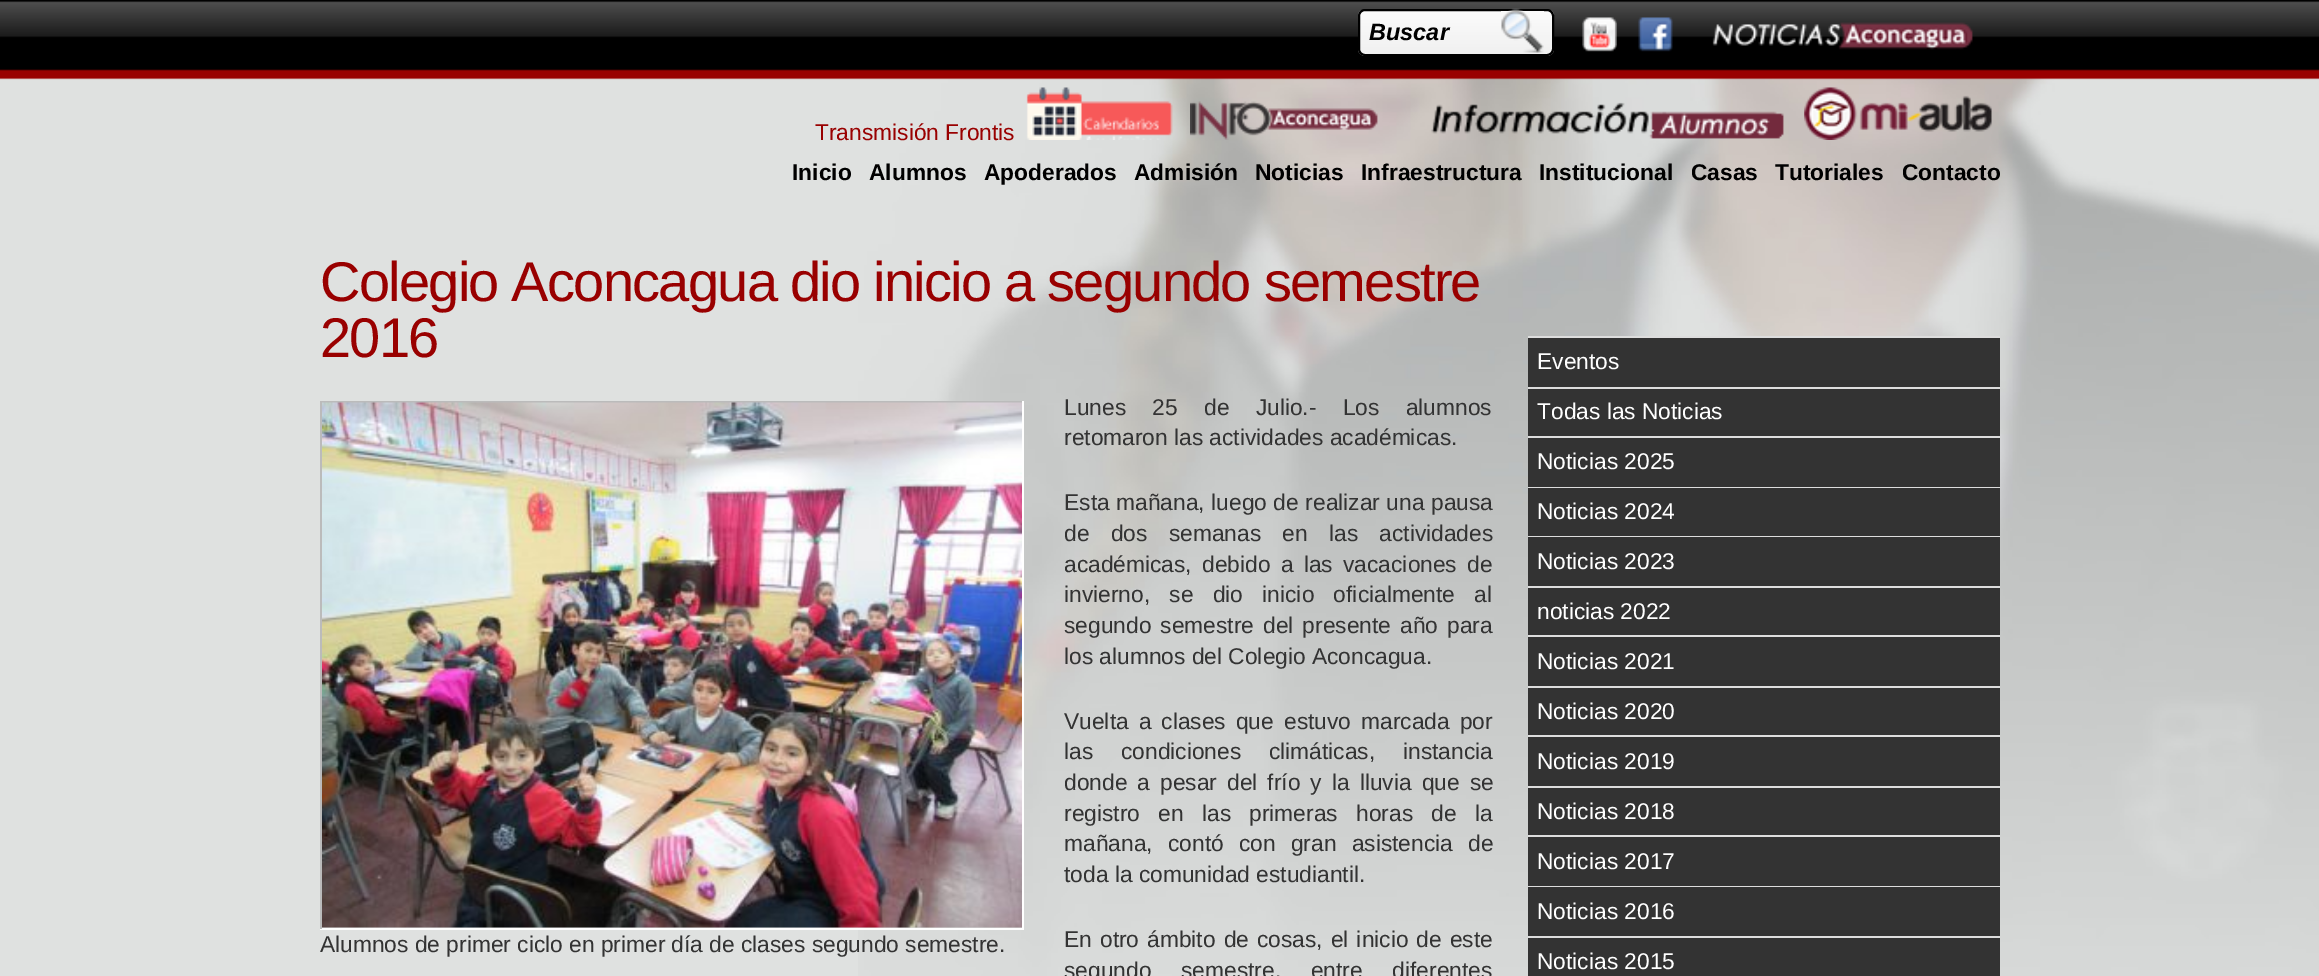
%!PS
<< /PageSize [2319 976] >> setpagedevice
/rgb { 3 { 255 div 3 1 roll } repeat setrgbcolor } def
/font { [ exch dup neg 0 0 3 -1 roll 0 0 ] selectfont } def
/roundrect { 5 dict begin { /r /h /w /y /x } { exch def } forall
  x r add y moveto x w add y 2 copy h add r arct x w add y h add x 1 index r arct
  x y h add x y r arct x y 2 copy exch w add exch r arct closepath end } def
/picture { 5 dict begin { /h /w /y /x /name } { exch def } forall
  gsave x y translate w h scale
  w h 8 [w 0 0 h 0 0] name (r) file false 3 colorimage grestore end } def
0 976 translate 1 -1 scale
4 setmiterlimit
223 225 224 rgb
0 0 2319 976 rectfill
(img/1.rgb) 858 78 1461 898 picture
(img/2.rgb) 0 0 2319 80 picture
(img/3.rgb) 1358 10 196 46 picture
0 0 0 rgb
2 setlinewidth
1359 10 194 45 6 roundrect stroke
(img/4.rgb) 1501 8 43 45 picture
(img/5.rgb) 1582 17 35 35 picture
(img/6.rgb) 1638 17 35 35 picture
(img/7.rgb) 1712 22 261 28 picture
(img/8.rgb) 1026 87 147 53 picture
(img/9.rgb) 1190 101 188 39 picture
(img/10.rgb) 1431 102 353 37 picture
(img/11.rgb) 1804 87 188 53 picture
[
  [320 401 704 2 187 187 187]
  [1022 401 2 528 255 255 255]
  [320 928 704 2 255 255 255]
  [320 401 2 528 187 187 187]
] { aload pop rgb rectfill } forall
(img/12.rgb) 322 402 700 526 picture
[
  [1528 336 472 2 221 221 221]
  [1528 338 472 49 51 51 51]
  [1528 387 472 2 221 221 221]
  [1528 389 472 47 51 51 51]
  [1528 436 472 2 221 221 221]
  [1528 438 472 49 51 51 51]
  [1528 487 472 1 221 221 221]
  [1528 488 472 48 51 51 51]
  [1528 536 472 1 221 221 221]
  [1528 537 472 49 51 51 51]
  [1528 586 472 2 221 221 221]
  [1528 588 472 47 51 51 51]
  [1528 635 472 2 221 221 221]
  [1528 637 472 49 51 51 51]
  [1528 686 472 2 221 221 221]
  [1528 688 472 47 51 51 51]
  [1528 735 472 2 221 221 221]
  [1528 737 472 49 51 51 51]
  [1528 786 472 2 221 221 221]
  [1528 788 472 47 51 51 51]
  [1528 835 472 2 221 221 221]
  [1528 837 472 49 51 51 51]
  [1528 886 472 1 221 221 221]
  [1528 887 472 49 51 51 51]
  [1528 936 472 2 221 221 221]
  [1528 938 472 38 51 51 51]
] { aload pop rgb rectfill } forall
/LiberationSans-BoldItalic 23.5 font
0 0 0 rgb
1369 40 moveto (Buscar) show
/LiberationSans-Regular 22.75 font
153 0 0 rgb
815 140 moveto (Transmisión Frontis) show
/LiberationSans-Bold 22.75 font
0 0 0 rgb
[
  [(Inicio) 792 180]
  [(Alumnos) 869 180]
  [(Apoderados) 984 180]
  [(Admisión) 1134 180]
  [(Noticias) 1255 180]
  [(Infraestructura) 1361 180]
  [(Institucional) 1539 180]
  [(Casas) 1691 180]
  [(Tutoriales) 1775 180]
  [(Contacto) 1902 180]
] { aload pop moveto show } forall
/LiberationSans-Regular 56 font
153 0 0 rgb
320 301 moveto -1.75 0 (Colegio Aconcagua dio inicio a segundo semestre) ashow
320 357 moveto -1.75 0 (2016) ashow
/LiberationSans-Regular 22.75 font
51 51 51 rgb
1064 415 moveto 20 0 32 (Lunes 25 de Julio.- Los alumnos) widthshow
1064 445 moveto (retomaron las actividades académicas.) show
1064 510 moveto 0.25 0 32 (Esta mañana, luego de realizar una pausa) widthshow
1064 541 moveto 15 0 32 (de dos semanas en las actividades) widthshow
1064 572 moveto 4 0 32 (académicas, debido a las vacaciones de) widthshow
1064 602 moveto 13 0 32 (invierno, se dio inicio oficialmente al) widthshow
1064 633 moveto 2.75 0 32 (segundo semestre del presente año para) widthshow
1064 664 moveto (los alumnos del Colegio Aconcagua.) show
1064 729 moveto 3.75 0 32 (Vuelta a clases que estuvo marcada por) widthshow
1064 759 moveto 21.5 0 32 (las condiciones climáticas, instancia) widthshow
1064 790 moveto 3.75 0 32 (donde a pesar del frío y la lluvia que se) widthshow
1064 821 moveto 12 0 32 (registro en las primeras horas de la) widthshow
1064 851 moveto 9 0 32 (mañana, contó con gran asistencia de) widthshow
1064 882 moveto (toda la comunidad estudiantil.) show
320 952 moveto (Alumnos de primer ciclo en primer día de clases segundo semestre.) show
1064 947 moveto 1.75 0 32 (En otro ámbito de cosas, el inicio de este) widthshow
1064 978 moveto 23.5 0 32 (segundo semestre, entre diferentes) widthshow
255 255 255 rgb
[
  [(Eventos) 1537 369]
  [(Todas las Noticias) 1537 419]
  [(Noticias 2025) 1537 469]
  [(Noticias 2024) 1537 519]
  [(Noticias 2023) 1537 569]
  [(noticias 2022) 1537 619]
  [(Noticias 2021) 1537 669]
  [(Noticias 2020) 1537 719]
  [(Noticias 2019) 1537 769]
  [(Noticias 2018) 1537 819]
  [(Noticias 2017) 1537 869]
  [(Noticias 2016) 1537 919]
  [(Noticias 2015) 1537 969]
] { aload pop moveto show } forall
showpage
